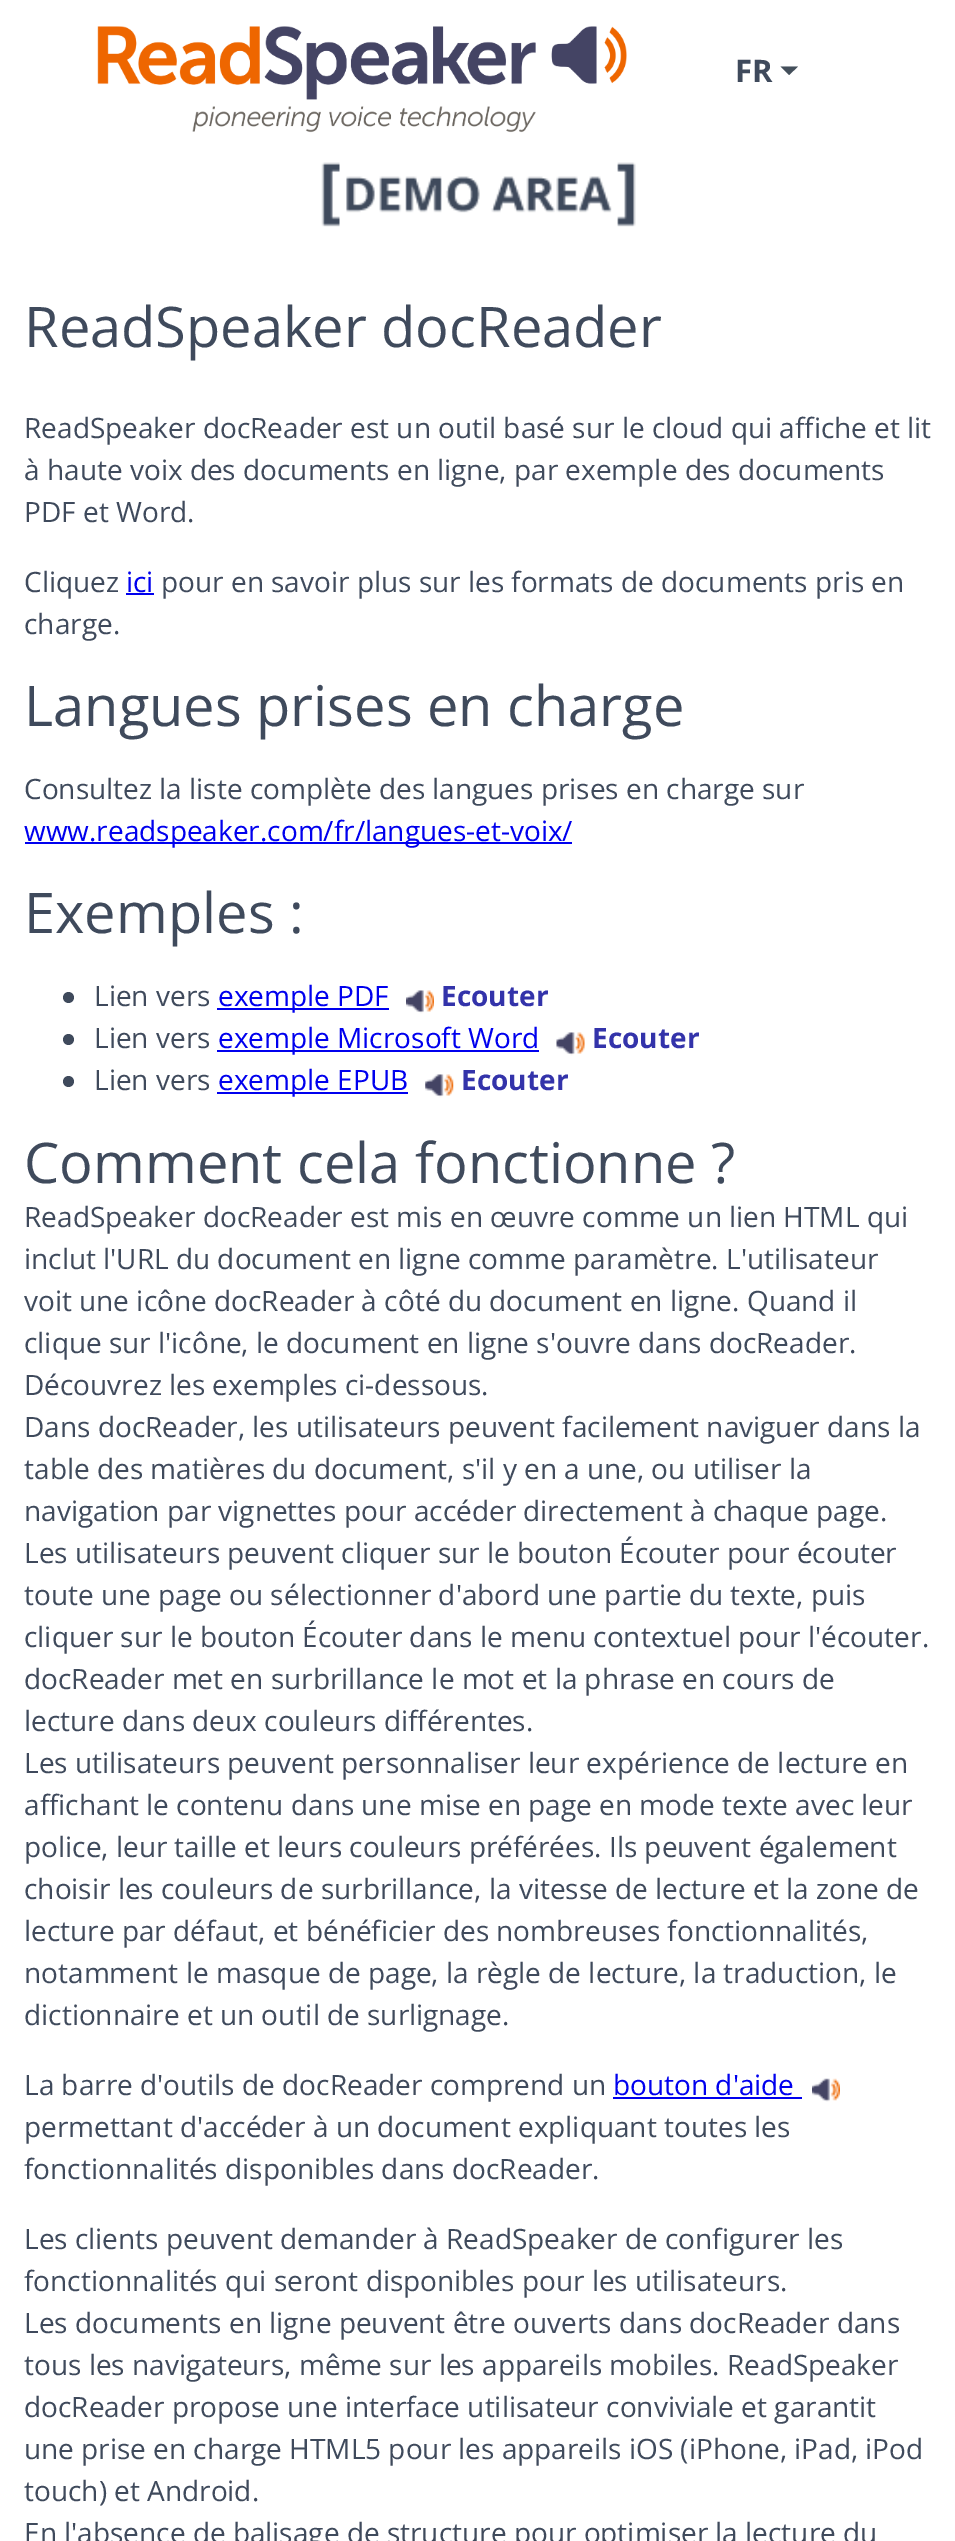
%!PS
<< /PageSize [955 2541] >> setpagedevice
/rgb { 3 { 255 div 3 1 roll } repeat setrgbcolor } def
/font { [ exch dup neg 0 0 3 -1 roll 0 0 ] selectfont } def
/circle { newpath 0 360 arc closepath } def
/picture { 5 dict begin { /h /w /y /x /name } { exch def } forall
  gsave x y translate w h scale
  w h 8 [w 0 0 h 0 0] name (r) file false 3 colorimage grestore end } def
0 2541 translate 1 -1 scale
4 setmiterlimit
255 255 255 rgb
0 0 955 2541 rectfill
(img/1.rgb) 97 26 530 107 picture
68 79 91 rgb
780.5 66.5 moveto 798 66.5 lineto 789 75 lineto closepath fill
(img/2.rgb) 321 162 315 65 picture
0 0 238 rgb
126 593 28 2 rectfill
25 842 547 2 rectfill
63 74 92 rgb
68.5 997.5 5.5 circle fill
0 0 238 rgb
217 1008 172 2 rectfill
(img/3.rgb) 406 990 28 24 picture
63 74 92 rgb
68.5 1039.5 5.5 circle fill
0 0 238 rgb
217 1050 322 2 rectfill
(img/4.rgb) 556 1032 29 24 picture
63 74 92 rgb
68.5 1081.5 5.5 circle fill
0 0 238 rgb
217 1092 191 2 rectfill
(img/5.rgb) 425 1074 29 24 picture
613 2097 189 2 rectfill
(img/6.rgb) 812 2078 28 24 picture
/OpenSans-Bold 31 font
63 74 92 rgb
735 82 moveto (FR) show
/OpenSans-Regular 56 font
24 347 moveto (ReadSpeaker docReader) show
/OpenSans-Regular 28 font
[
  [(ReadSpeaker docReader est un outil basé sur le cloud qui affiche et lit) 24 438]
  [(à haute voix des documents en ligne, par exemple des documents) 24 480]
  [(PDF et Word.) 24 522]
  [(Cliquez) 24 592]
] { aload pop moveto show } forall
0 0 238 rgb
126 592 moveto (ici) show
63 74 92 rgb
161 592 moveto (pour en savoir plus sur les formats de documents pris en) show
24 634 moveto (charge.) show
/OpenSans-Regular 56 font
24 726 moveto (Langues prises en charge) show
/OpenSans-Regular 28 font
24 799 moveto (Consultez la liste complète des langues prises en charge sur) show
0 0 238 rgb
24 841 moveto (www.readspeaker.com/fr/langues-et-voix/) show
/OpenSans-Regular 56 font
63 74 92 rgb
24 933 moveto (Exemples :) show
/OpenSans-Regular 28 font
94 1006 moveto (Lien vers) show
0 0 238 rgb
218 1006 moveto (exemple PDF) show
/OpenSans-Bold 28 font
51 51 170 rgb
441 1006 moveto (Ecouter) show
/OpenSans-Regular 28 font
63 74 92 rgb
94 1048 moveto (Lien vers) show
0 0 238 rgb
218 1048 moveto (exemple Microsoft Word) show
/OpenSans-Bold 28 font
51 51 170 rgb
592 1048 moveto (Ecouter) show
/OpenSans-Regular 28 font
63 74 92 rgb
94 1090 moveto (Lien vers) show
0 0 238 rgb
218 1090 moveto (exemple EPUB) show
/OpenSans-Bold 28 font
51 51 170 rgb
461 1090 moveto (Ecouter) show
/OpenSans-Regular 56 font
63 74 92 rgb
24 1183 moveto (Comment cela fonctionne ?) show
/OpenSans-Regular 28 font
[
  [(ReadSpeaker docReader est mis en œuvre comme un lien HTML qui) 24 1227]
  [(inclut l'URL du document en ligne comme paramètre. L'utilisateur) 24 1269]
  [(voit une icône docReader à côté du document en ligne. Quand il) 24 1311]
  [(clique sur l'icône, le document en ligne s'ouvre dans docReader.) 24 1353]
  [(Découvrez les exemples ci-dessous.) 24 1395]
  [(Dans docReader, les utilisateurs peuvent facilement naviguer dans la) 24 1437]
  [(table des matières du document, s'il y en a une, ou utiliser la) 24 1479]
  [(navigation par vignettes pour accéder directement à chaque page.) 24 1521]
  [(Les utilisateurs peuvent cliquer sur le bouton Écouter pour écouter) 24 1563]
  [(toute une page ou sélectionner d'abord une partie du texte, puis) 24 1605]
  [(cliquer sur le bouton Écouter dans le menu contextuel pour l'écouter.) 24 1647]
  [(docReader met en surbrillance le mot et la phrase en cours de) 24 1689]
  [(lecture dans deux couleurs différentes.) 24 1731]
  [(Les utilisateurs peuvent personnaliser leur expérience de lecture en) 24 1773]
  [(affichant le contenu dans une mise en page en mode texte avec leur) 24 1815]
  [(police, leur taille et leurs couleurs préférées. Ils peuvent également) 24 1857]
  [(choisir les couleurs de surbrillance, la vitesse de lecture et la zone de) 24 1899]
  [(lecture par défaut, et bénéficier des nombreuses fonctionnalités,) 24 1941]
  [(notamment le masque de page, la règle de lecture, la traduction, le) 24 1983]
  [(dictionnaire et un outil de surlignage.) 24 2025]
  [(La barre d'outils de docReader comprend un) 24 2095]
] { aload pop moveto show } forall
0 0 238 rgb
613 2095 moveto (bouton d'aide) show
63 74 92 rgb
[
  [(permettant d'accéder à un document expliquant toutes les) 24 2137]
  [(fonctionnalités disponibles dans docReader.) 24 2179]
  [(Les clients peuvent demander à ReadSpeaker de configurer les) 24 2249]
  [(fonctionnalités qui seront disponibles pour les utilisateurs.) 24 2291]
  [(Les documents en ligne peuvent être ouverts dans docReader dans) 24 2333]
  [(tous les navigateurs, même sur les appareils mobiles. ReadSpeaker) 24 2375]
  [(docReader propose une interface utilisateur conviviale et garantit) 24 2417]
  [(une prise en charge HTML5 pour les appareils iOS \(iPhone, iPad, iPod) 24 2459]
  [(touch\) et Android.) 24 2501]
  [(En l'absence de balisage de structure pour optimiser la lecture du) 24 2543]
] { aload pop moveto show } forall
showpage
